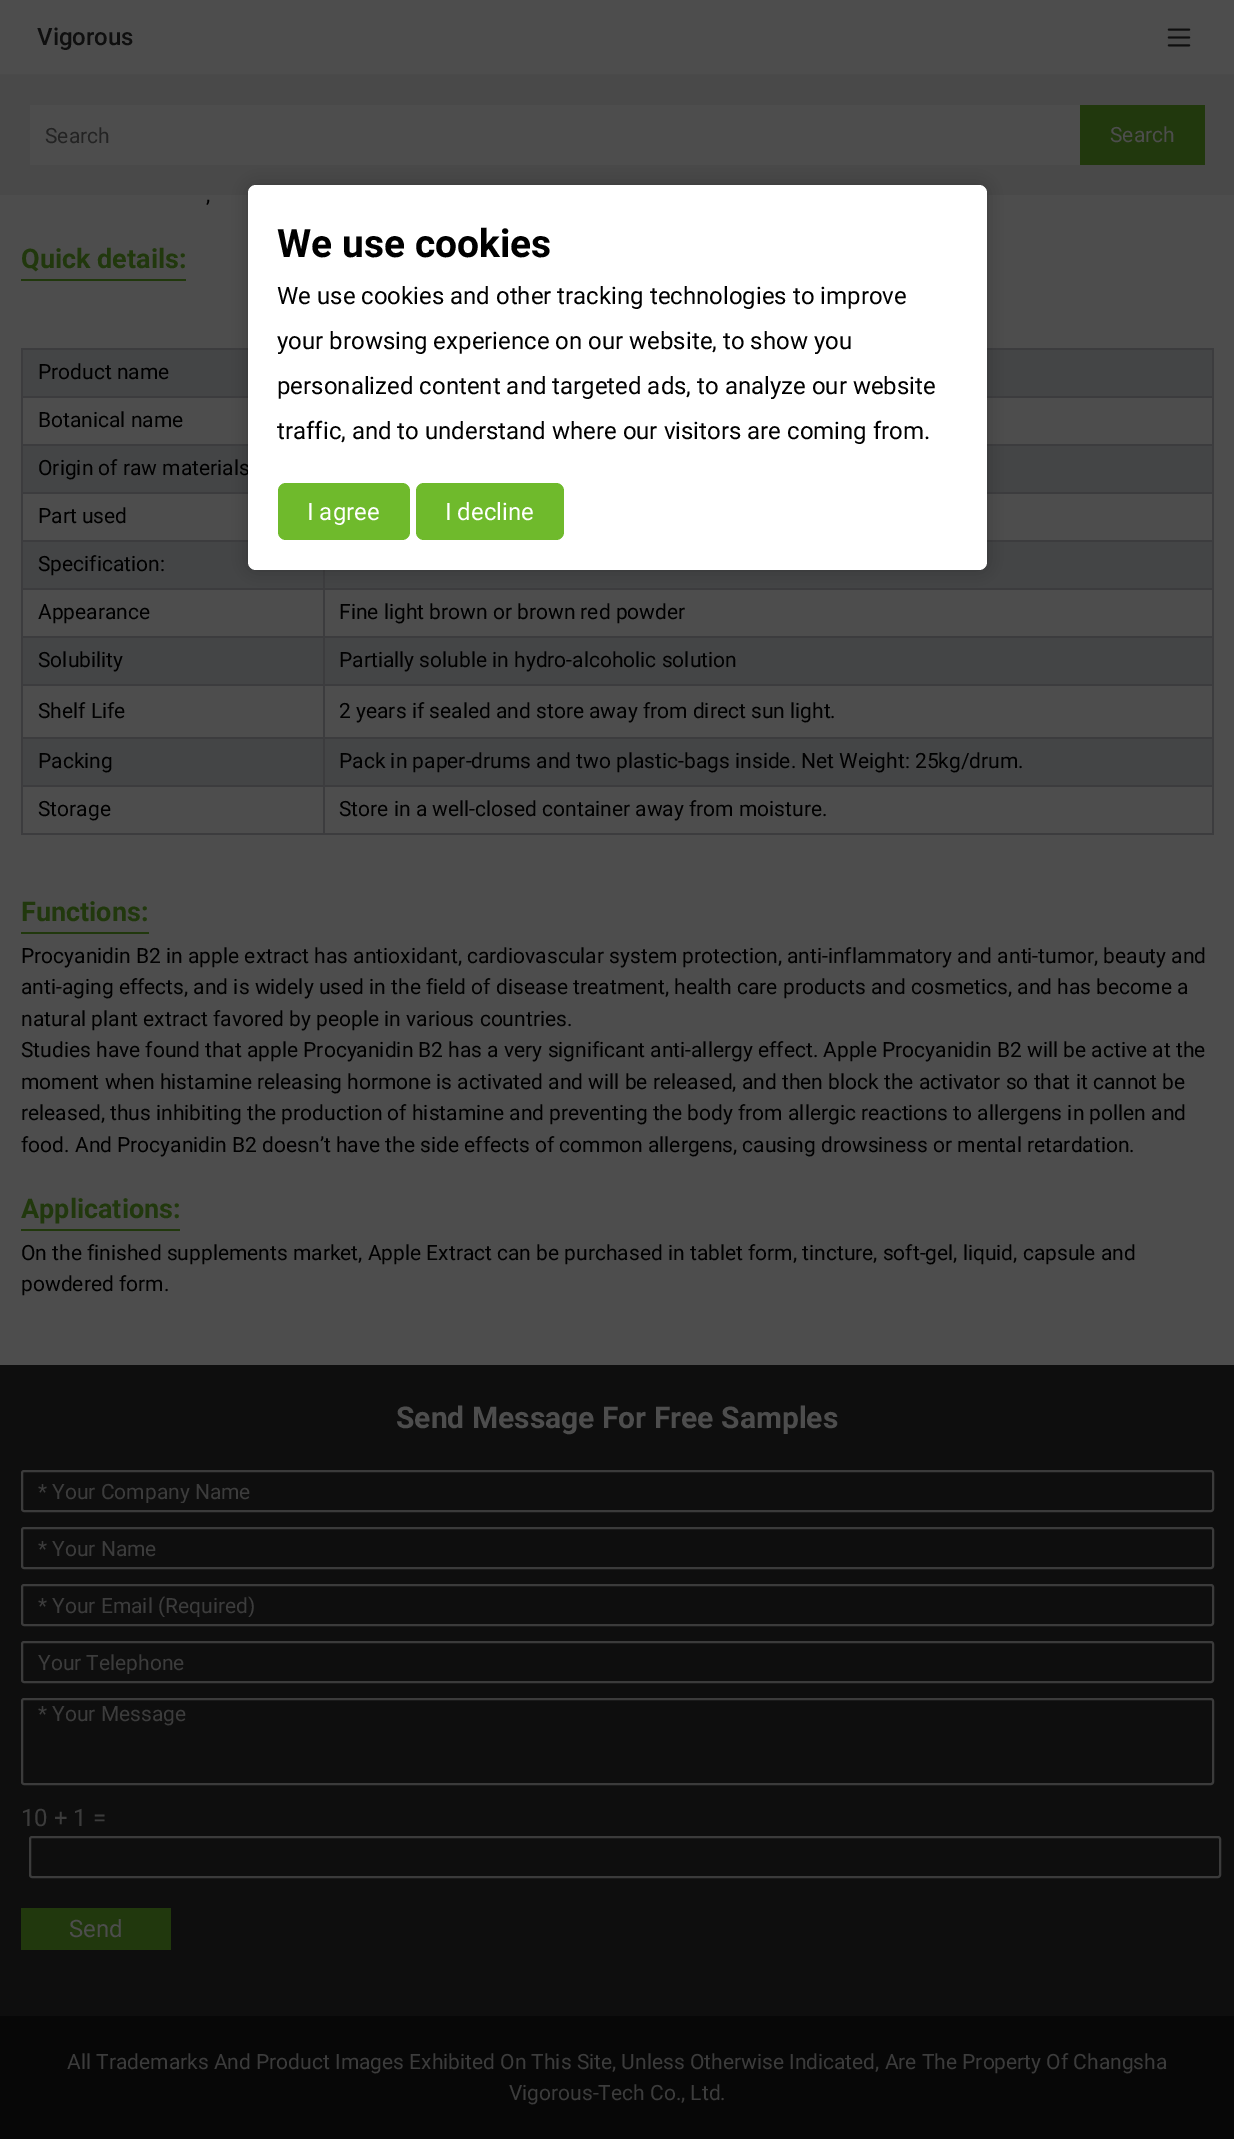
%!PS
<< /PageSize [1234 2139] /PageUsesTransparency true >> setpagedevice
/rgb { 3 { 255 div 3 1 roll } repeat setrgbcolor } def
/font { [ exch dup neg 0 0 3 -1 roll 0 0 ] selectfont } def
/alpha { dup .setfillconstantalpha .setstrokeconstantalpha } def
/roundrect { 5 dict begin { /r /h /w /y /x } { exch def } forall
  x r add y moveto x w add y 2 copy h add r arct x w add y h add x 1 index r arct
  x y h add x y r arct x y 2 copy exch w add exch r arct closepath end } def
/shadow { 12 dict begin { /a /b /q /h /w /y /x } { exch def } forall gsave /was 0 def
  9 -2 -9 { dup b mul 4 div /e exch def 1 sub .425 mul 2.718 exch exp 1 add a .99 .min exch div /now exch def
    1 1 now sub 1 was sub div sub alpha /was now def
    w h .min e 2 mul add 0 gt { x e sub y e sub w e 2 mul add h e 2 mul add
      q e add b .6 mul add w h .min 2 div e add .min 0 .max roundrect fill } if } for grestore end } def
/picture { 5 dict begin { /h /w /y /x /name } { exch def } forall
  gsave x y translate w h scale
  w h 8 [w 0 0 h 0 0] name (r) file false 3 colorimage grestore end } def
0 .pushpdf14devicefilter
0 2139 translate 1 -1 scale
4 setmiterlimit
77 77 77 rgb
0 0 1234 2139 rectfill
74 74 74 rgb
0 74 1234 1 rectfill
(img/1.rgb) 1167 28 24 19 picture
[
  [0 75 1234 120 73 73 73]
  [30 105 1050 60 77 77 77]
  [1080 105 125 60 33 56 13]
  [21 279 165 2 33 56 13]
  [23 350 1189 46 68 69 70]
  [21 348 227 2 60 60 62]
  [21 396 227 2 60 60 62]
  [21 444 227 2 60 60 62]
  [21 492 227 2 60 60 62]
  [21 540 227 2 60 60 62]
  [323 588 891 2 60 60 62]
  [323 636 891 2 60 60 62]
  [23 638 1189 46 68 69 70]
  [323 684 891 2 60 60 62]
  [323 737 891 2 60 60 62]
  [23 739 1189 46 68 69 70]
  [323 785 891 2 60 60 62]
  [1212 785 2 49 60 60 62]
  [323 833 891 2 60 60 62]
  [323 785 2 49 60 60 62]
  [21 785 303 2 60 60 62]
  [323 737 2 49 60 60 62]
  [21 737 303 2 60 60 62]
  [323 684 2 54 60 60 62]
  [21 684 303 2 60 60 62]
  [323 636 2 50 60 60 62]
  [21 636 303 2 60 60 62]
  [323 588 2 50 60 60 62]
  [21 588 303 2 60 60 62]
  [21 833 303 2 60 60 62]
  [21 785 2 49 60 60 62]
  [21 737 2 49 60 60 62]
  [21 684 2 54 60 60 62]
  [21 636 2 50 60 60 62]
  [21 588 2 50 60 60 62]
  [21 540 2 50 60 60 62]
  [21 492 2 50 60 60 62]
  [21 444 2 50 60 60 62]
  [21 396 2 50 60 60 62]
  [21 348 2 50 60 60 62]
  [987 348 227 2 60 60 62]
  [987 396 227 2 60 60 62]
  [987 444 227 2 60 60 62]
  [987 492 227 2 60 60 62]
  [987 540 227 2 60 60 62]
  [1212 737 2 49 60 60 62]
  [1212 684 2 54 60 60 62]
  [1212 636 2 50 60 60 62]
  [1212 588 2 50 60 60 62]
  [1212 540 2 50 60 60 62]
  [1212 492 2 50 60 60 62]
  [1212 444 2 50 60 60 62]
  [1212 396 2 50 60 60 62]
  [1212 348 2 50 60 60 62]
  [23 446 1189 46 68 69 70]
  [23 542 1189 46 68 69 70]
  [323 570 2 20 60 60 62]
  [21 932 128 2 33 56 13]
  [21 1229 159 2 33 56 13]
] { aload pop rgb rectfill } forall
0 0 0 rgb
248 185 739 385 8 7.5 0.2 shadow
14 14 14 rgb
0 1365 1234 651 rectfill
59 59 59 rgb
2 setlinewidth
22 1471 1191 40 2 roundrect stroke
22 1528 1191 40 2 roundrect stroke
22 1585 1191 40 2 roundrect stroke
22 1642 1191 40 2 roundrect stroke
22 1699 1191 85 2 roundrect stroke
30 1837 1190 40 2 roundrect stroke
33 56 13 rgb
21 1908 150 42 rectfill
7 7 7 rgb
0 2016 1234 123 rectfill
/Roboto-Medium 24 font
15 15 15 rgb
37 45 moveto (Vigorous) show
/Roboto-Regular 21 font
35 35 35 rgb
45 143 moveto (Search) show
77 77 77 rgb
1110 142 moveto (Search) show
0 0 0 rgb
206 202 moveto (,) show
/Roboto-Bold 27 font
33 56 13 rgb
21 268 moveto (Quick details:) show
/Roboto-Regular 21 font
0 0 0 rgb
[
  [(Product name) 38 379]
  [(Botanical name) 38 427]
  [(Origin of raw materials) 38 475]
  [(Part used) 38 523]
  [(Specification:) 38 571]
  [(Appearance) 38 619]
  [(Fine light brown or brown red powder) 339 619]
  [(Solubility) 38 667]
  [(Partially soluble in hydro-alcoholic solution) 339 667]
  [(Shelf Life) 38 718]
  [(2 years if sealed and store away from direct sun light.) 339 718]
  [(Packing) 38 768]
  [(Pack in paper-drums and two plastic-bags inside. Net Weight: 25kg/drum.) 339 768]
  [(Storage) 38 816]
  [(Store in a well-closed container away from moisture.) 339 816]
] { aload pop moveto show } forall
/Roboto-Bold 27 font
33 56 13 rgb
21 921 moveto (Functions:) show
/Roboto-Regular 21 font
0 0 0 rgb
[
  [(Procyanidin B2 in apple extract has antioxidant, cardiovascular system protection, anti-inflammatory and anti-tumor, beauty and) 21 963]
  [(anti-aging effects, and is widely used in the field of disease treatment, health care products and cosmetics, and has become a) 21 994]
  [(natural plant extract favored by people in various countries.) 21 1026]
  [(Studies have found that apple Procyanidin B2 has a very significant anti-allergy effect. Apple Procyanidin B2 will be active at the) 21 1057]
  [(moment when histamine releasing hormone is activated and will be released, and then block the activator so that it cannot be) 21 1089]
  [(released, thus inhibiting the production of histamine and preventing the body from allergic reactions to allergens in pollen and) 21 1120]
  [(food. And Procyanidin B2 doesn’t have the side effects of common allergens, causing drowsiness or mental retardation.) 21 1152]
] { aload pop moveto show } forall
/Roboto-Bold 27 font
33 56 13 rgb
21 1218 moveto (Applications:) show
/Roboto-Regular 21 font
0 0 0 rgb
21 1260 moveto (On the finished supplements market, Apple Extract can be purchased in tablet form, tincture, soft-gel, liquid, capsule and) show
21 1291 moveto (powdered form.) show
255 255 255 rgb
248 185 739 385 8 roundrect fill
/Roboto-Bold 39 font
0 0 0 rgb
277 257 moveto (We use cookies) show
/Roboto-Regular 24 font
[
  [(We use cookies and other tracking technologies to improve) 277 304]
  [(your browsing experience on our website, to show you) 277 349]
  [(personalized content and targeted ads, to analyze our website) 277 394]
  [(traffic, and to understand where our visitors are coming from.) 277 439]
] { aload pop moveto show } forall
111 186 44 rgb
278 483 132 57 8 roundrect fill
255 255 255 rgb
307 520 moveto (I agree) show
111 186 44 rgb
416 483 148 57 8 roundrect fill
255 255 255 rgb
445 520 moveto (I decline) show
/Roboto-Bold 30 font
77 77 77 rgb
396 1428 moveto (Send Message For Free Samples) show
gsave
38 1479 1159 24 rectclip
/Roboto-Regular 21 font
60 60 60 rgb
38 1499 moveto (* Your Company Name) show
grestore
/Roboto-Regular 21 font
60 60 60 rgb
38 1556 moveto (* Your Name) show
gsave
38 1593 1159 24 rectclip
38 1613 moveto (* Your Email \(Required\)) show
grestore
gsave
38 1650 1159 24 rectclip
38 1670 moveto (Your Telephone) show
grestore
38 1721 moveto (* Your Message) show
/Roboto-Regular 24 font
21 1826 moveto (10 + 1 =) show
77 77 77 rgb
69 1937 moveto (Send) show
/Roboto-Regular 21 font
60 60 60 rgb
67 2069 moveto (All Trademarks And Product Images Exhibited On This Site, Unless Otherwise Indicated, Are The Property Of Changsha) show
509 2100 moveto (Vigorous-Tech Co., Ltd.) show
.poppdf14devicefilter showpage
